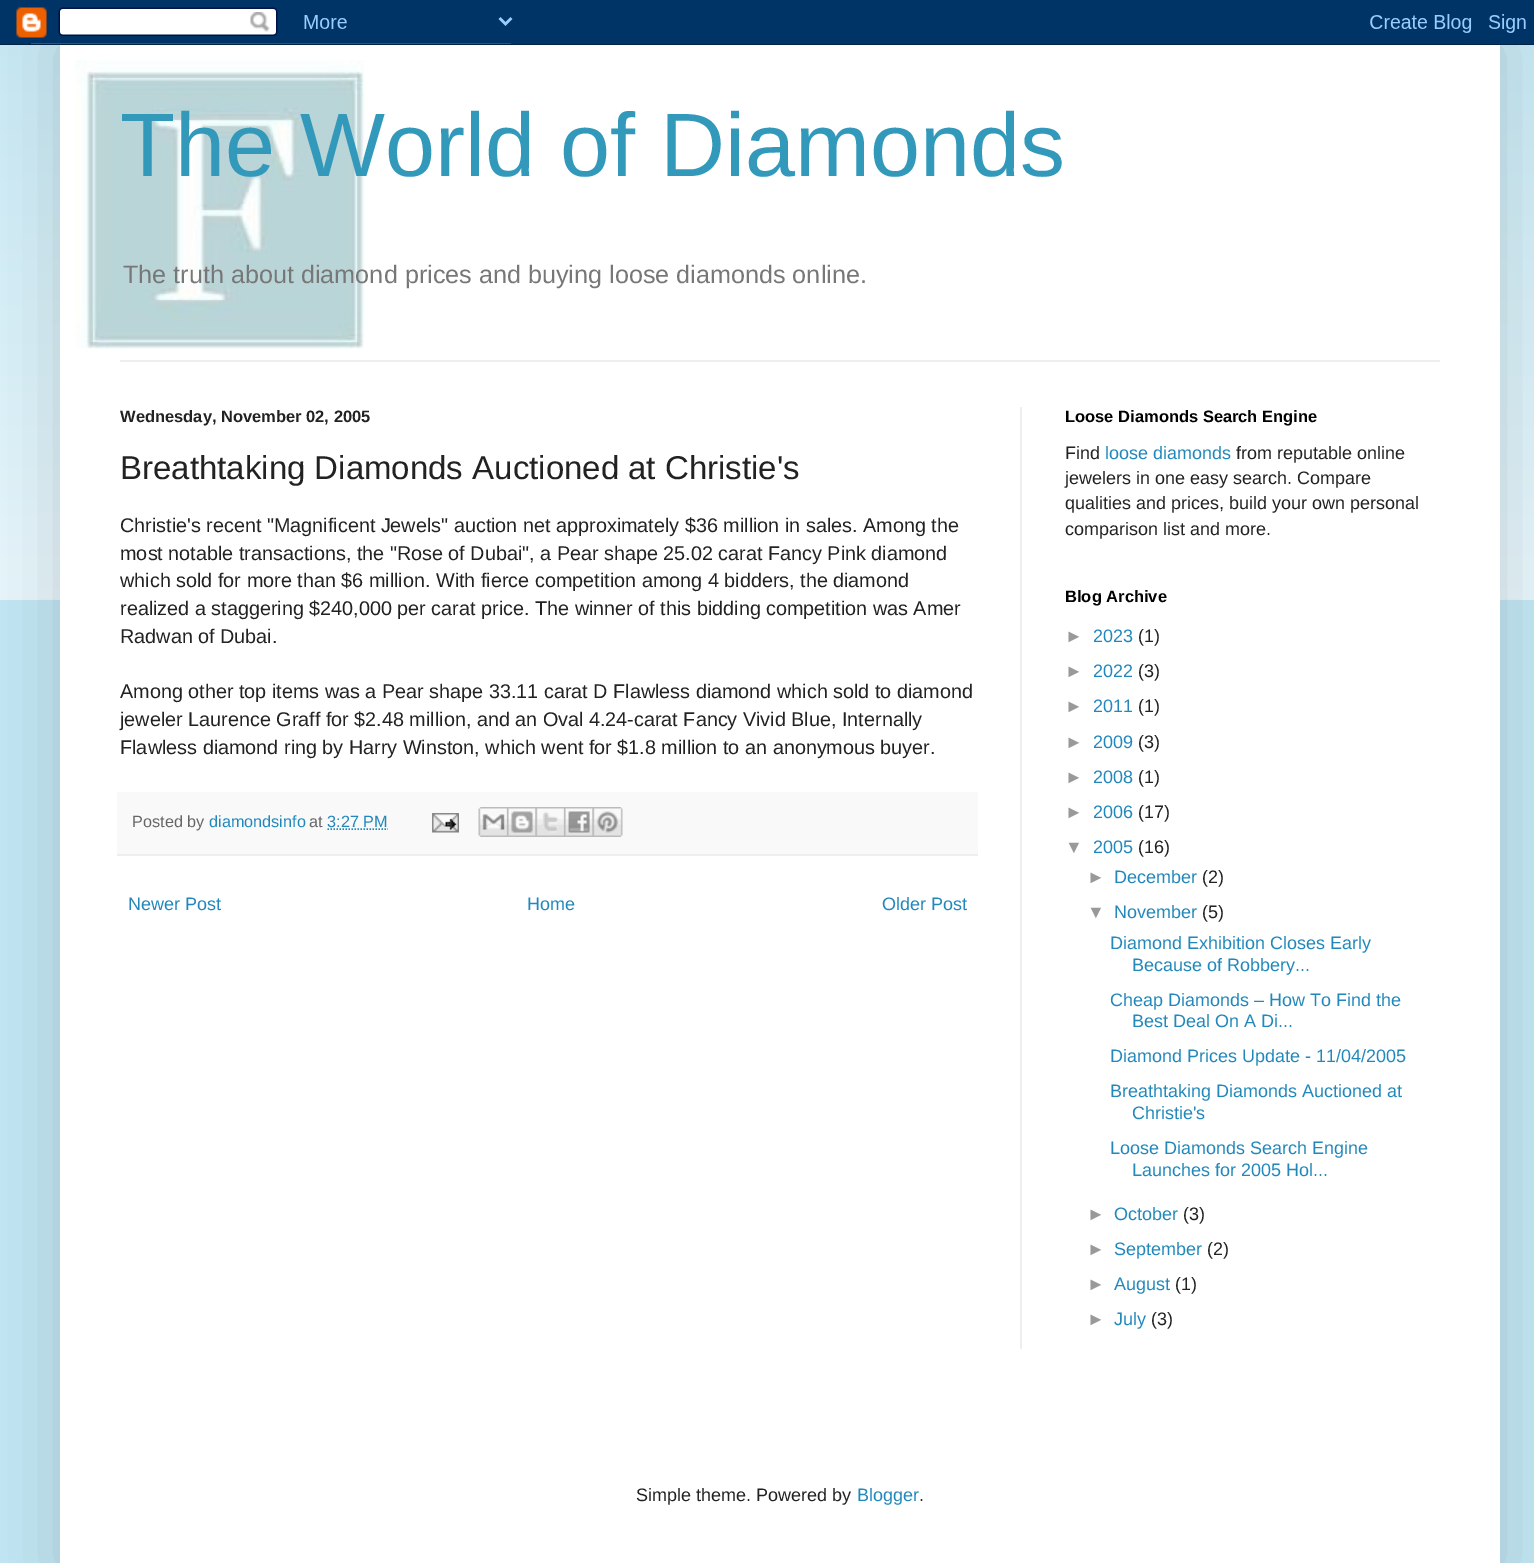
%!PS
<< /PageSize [1534 1563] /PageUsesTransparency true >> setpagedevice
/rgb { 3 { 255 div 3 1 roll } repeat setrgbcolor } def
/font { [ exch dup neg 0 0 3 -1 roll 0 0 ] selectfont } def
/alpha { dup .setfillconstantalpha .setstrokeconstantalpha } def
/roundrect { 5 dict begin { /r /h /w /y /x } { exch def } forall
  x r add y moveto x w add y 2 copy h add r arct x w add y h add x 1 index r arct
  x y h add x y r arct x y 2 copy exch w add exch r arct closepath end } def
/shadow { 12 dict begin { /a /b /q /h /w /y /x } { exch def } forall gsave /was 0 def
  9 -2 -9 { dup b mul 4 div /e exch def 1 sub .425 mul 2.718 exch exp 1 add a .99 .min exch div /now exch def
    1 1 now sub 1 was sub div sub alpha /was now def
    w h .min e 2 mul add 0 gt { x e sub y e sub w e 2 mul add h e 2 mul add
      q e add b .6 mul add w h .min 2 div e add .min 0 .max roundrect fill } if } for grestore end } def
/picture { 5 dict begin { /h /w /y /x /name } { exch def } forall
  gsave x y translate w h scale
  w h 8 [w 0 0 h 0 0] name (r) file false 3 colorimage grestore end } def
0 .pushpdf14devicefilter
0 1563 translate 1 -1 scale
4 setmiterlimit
193 229 242 rgb
0 0 1534 1563 rectfill
(img/2.rgb) 0 43 1534 557 picture
0 0 0 rgb
60 45 1440 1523 0 30 0.15 shadow
(img/1.rgb) 0 0 1534 45 picture
255 255 255 rgb
60 45 1440 1518 rectfill
(img/3.rgb) 75 60 290 289 picture
[
  [120 360 1320 2 238 238 238]
  [1020 407 2 942 238 238 238]
  [117 792 861 62 249 249 249]
  [117 854 861 2 238 238 238]
] { aload pop rgb rectfill } forall
34 136 187 rgb
1.5 setlinewidth
[1.5 1.5] 0 setdash
327.5 829 moveto 388 829 lineto stroke
(img/4.rgb) 432 813 27 20 picture
(img/5.rgb) 478 807 29 30 picture
(img/6.rgb) 507 807 29 30 picture
(img/7.rgb) 535 807 29 30 picture
(img/8.rgb) 564 807 29 30 picture
(img/9.rgb) 592 807 31 30 picture
/LiberationSans-Regular 90 font
51 153 187 rgb
120 176 moveto (The World of Diamonds) show
/LiberationSans-Regular 25.2 font
119 119 119 rgb
123 283 moveto (The truth about diamond prices and buying loose diamonds online.) show
/LiberationSans-Bold 16.5 font
34 34 34 rgb
120 422 moveto (Wednesday, November 02, 2005) show
/LiberationSans-Regular 33 font
120 479 moveto (Breathtaking Diamonds Auctioned at Christie's) show
/LiberationSans-Regular 19.8 font
[
  [(Christie's recent "Magnificent Jewels" auction net approximately $36 million in sales. Among the) 120 532]
  [(most notable transactions, the "Rose of Dubai", a Pear shape 25.02 carat Fancy Pink diamond) 120 560]
  [(which sold for more than $6 million. With fierce competition among 4 bidders, the diamond) 120 587]
  [(realized a staggering $240,000 per carat price. The winner of this bidding competition was Amer) 120 615]
  [(Radwan of Dubai.) 120 643]
  [(Among other top items was a Pear shape 33.11 carat D Flawless diamond which sold to diamond) 120 698]
  [(jeweler Laurence Graff for $2.48 million, and an Oval 4.24-carat Fancy Vivid Blue, Internally) 120 726]
  [(Flawless diamond ring by Harry Winston, which went for $1.8 million to an anonymous buyer.) 120 754]
] { aload pop moveto show } forall
/LiberationSans-Regular 16.25 font
102 102 102 rgb
132 827 moveto (Posted by) show
34 136 187 rgb
209 827 moveto (diamondsinfo) show
102 102 102 rgb
309 827 moveto (at) show
34 136 187 rgb
327 827 moveto (3:27 PM) show
/LiberationSans-Regular 18 font
[
  [(Newer Post) 128 910]
  [(Home) 527 910]
  [(Older Post) 882 910]
] { aload pop moveto show } forall
/LiberationSans-Bold 16.5 font
0 0 0 rgb
1065 422 moveto (Loose Diamonds Search Engine) show
/LiberationSans-Regular 18 font
34 34 34 rgb
1065 459 moveto (Find) show
34 136 187 rgb
1105 459 moveto (loose diamonds) show
34 34 34 rgb
[
  [(from reputable online) 1236 459]
  [(jewelers in one easy search. Compare) 1065 484]
  [(qualities and prices, build your own personal) 1065 509]
  [(comparison list and more.) 1065 535]
] { aload pop moveto show } forall
/LiberationSans-Bold 16.5 font
0 0 0 rgb
1065 602 moveto (Blog Archive) show
/LiberationSans-Regular 18 font
153 153 153 rgb
1065 642 moveto (►) show
34 136 187 rgb
1093 642 moveto (2023) show
34 34 34 rgb
1138 642 moveto (\(1\)) show
153 153 153 rgb
1065 677 moveto (►) show
34 136 187 rgb
1093 677 moveto (2022) show
34 34 34 rgb
1138 677 moveto (\(3\)) show
153 153 153 rgb
1065 712 moveto (►) show
34 136 187 rgb
1093 712 moveto (2011) show
34 34 34 rgb
1138 712 moveto (\(1\)) show
153 153 153 rgb
1065 748 moveto (►) show
34 136 187 rgb
1093 748 moveto (2009) show
34 34 34 rgb
1138 748 moveto (\(3\)) show
153 153 153 rgb
1065 783 moveto (►) show
34 136 187 rgb
1093 783 moveto (2008) show
34 34 34 rgb
1138 783 moveto (\(1\)) show
153 153 153 rgb
1065 818 moveto (►) show
34 136 187 rgb
1093 818 moveto (2006) show
34 34 34 rgb
1138 818 moveto (\(17\)) show
153 153 153 rgb
1065 853 moveto (▼) show
34 136 187 rgb
1093 853 moveto (2005) show
34 34 34 rgb
1138 853 moveto (\(16\)) show
153 153 153 rgb
1087 883 moveto (►) show
34 136 187 rgb
1114 883 moveto (December) show
34 34 34 rgb
1202 883 moveto (\(2\)) show
153 153 153 rgb
1087 918 moveto (▼) show
34 136 187 rgb
1114 918 moveto (November) show
34 34 34 rgb
1202 918 moveto (\(5\)) show
34 136 187 rgb
[
  [(Diamond Exhibition Closes Early) 1110 949]
  [(Because of Robbery...) 1132 971]
  [(Cheap Diamonds – How To Find the) 1110 1006]
  [(Best Deal On A Di...) 1132 1027]
  [(Diamond Prices Update - 11/04/2005) 1110 1062]
  [(Breathtaking Diamonds Auctioned at) 1110 1097]
  [(Christie's) 1132 1119]
  [(Loose Diamonds Search Engine) 1110 1154]
  [(Launches for 2005 Hol...) 1132 1176]
] { aload pop moveto show } forall
153 153 153 rgb
1087 1220 moveto (►) show
34 136 187 rgb
1114 1220 moveto (October) show
34 34 34 rgb
1183 1220 moveto (\(3\)) show
153 153 153 rgb
1087 1255 moveto (►) show
34 136 187 rgb
1114 1255 moveto (September) show
34 34 34 rgb
1207 1255 moveto (\(2\)) show
153 153 153 rgb
1087 1290 moveto (►) show
34 136 187 rgb
1114 1290 moveto (August) show
34 34 34 rgb
1175 1290 moveto (\(1\)) show
153 153 153 rgb
1087 1325 moveto (►) show
34 136 187 rgb
1114 1325 moveto (July) show
34 34 34 rgb
1151 1325 moveto (\(3\)) show
636 1501 moveto (Simple theme. Powered by) show
34 136 187 rgb
857 1501 moveto (Blogger) show
34 34 34 rgb
919 1501 moveto (.) show
.poppdf14devicefilter showpage
